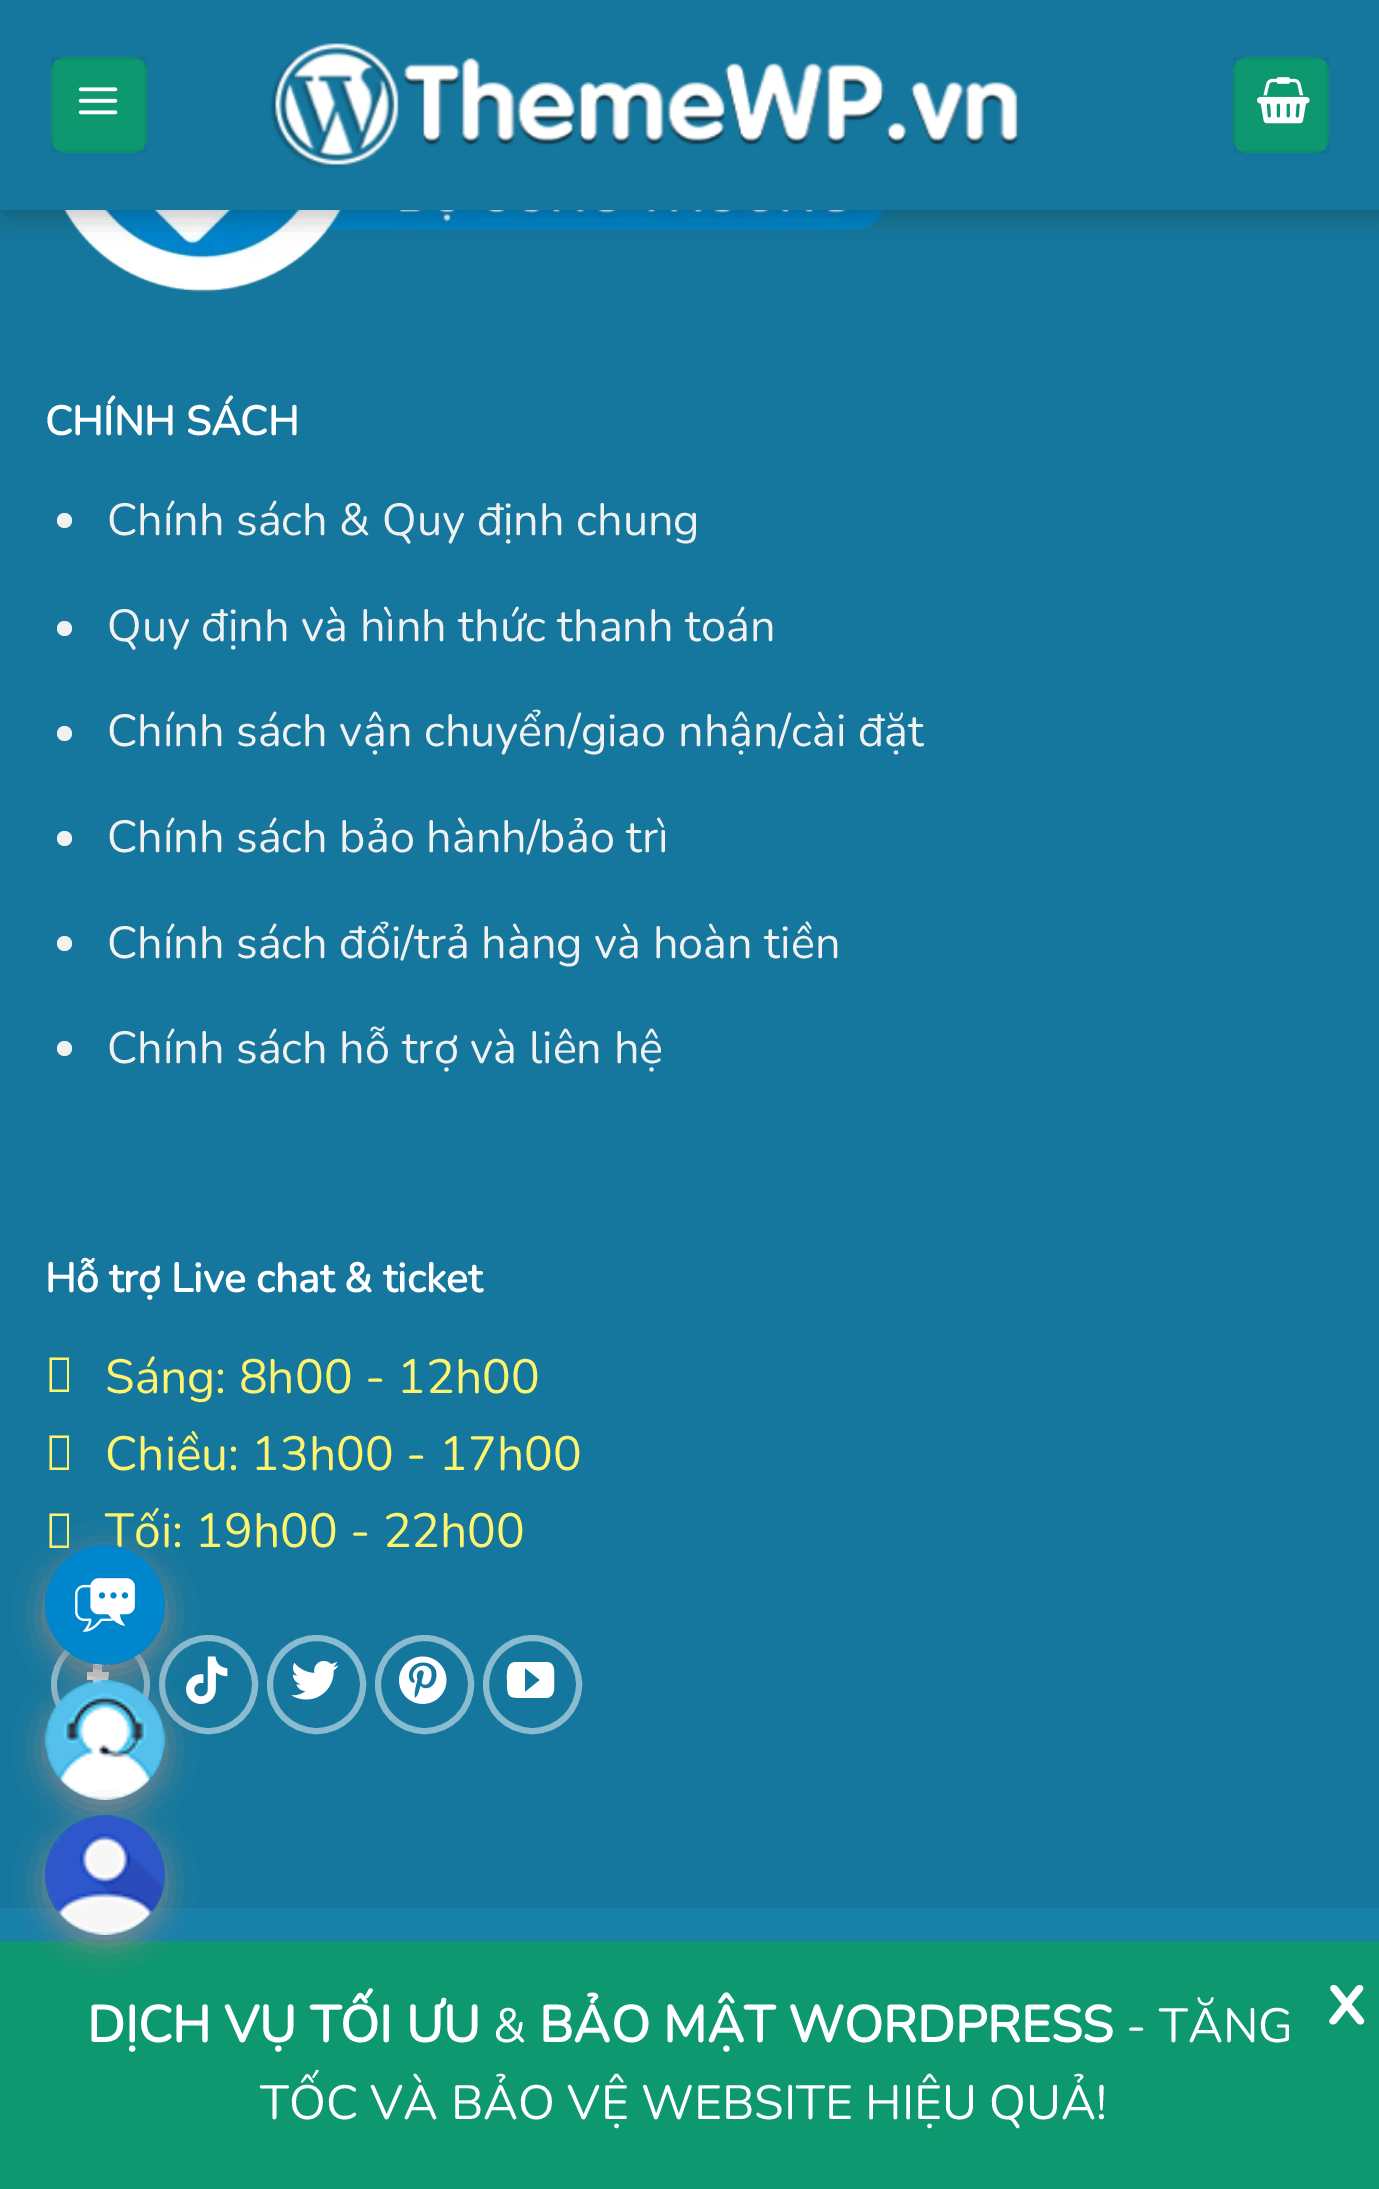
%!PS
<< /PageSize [1379 2189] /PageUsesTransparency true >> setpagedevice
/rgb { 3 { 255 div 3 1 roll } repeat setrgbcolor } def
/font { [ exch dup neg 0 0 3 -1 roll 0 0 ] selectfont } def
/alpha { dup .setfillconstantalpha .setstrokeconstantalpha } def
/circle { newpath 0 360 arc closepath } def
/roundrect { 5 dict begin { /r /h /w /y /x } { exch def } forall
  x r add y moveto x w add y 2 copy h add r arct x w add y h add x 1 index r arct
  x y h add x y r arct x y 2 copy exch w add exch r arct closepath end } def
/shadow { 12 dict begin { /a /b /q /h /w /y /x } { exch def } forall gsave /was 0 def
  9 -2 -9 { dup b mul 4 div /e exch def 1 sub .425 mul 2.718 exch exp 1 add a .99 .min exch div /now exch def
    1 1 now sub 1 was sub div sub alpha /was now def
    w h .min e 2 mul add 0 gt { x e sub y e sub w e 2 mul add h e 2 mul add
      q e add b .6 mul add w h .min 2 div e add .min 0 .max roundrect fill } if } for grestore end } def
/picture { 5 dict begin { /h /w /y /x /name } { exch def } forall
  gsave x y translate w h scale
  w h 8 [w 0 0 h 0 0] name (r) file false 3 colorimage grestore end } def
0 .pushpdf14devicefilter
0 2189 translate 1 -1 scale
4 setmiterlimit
23 128 169 rgb
0 0 1379 2189 rectfill
21 119 158 rgb
0 210 1379 1698 rectfill
(img/4.rgb) 64 210 820 82 picture
0 0 0 rgb
3 3 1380 210 0 15 0.15 shadow
21 119 158 rgb
0 0 1379 210 rectfill
gsave
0 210 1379 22 rectclip
0 0 0 rgb
6 6 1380 210 0 15 0.14 shadow
grestore
13 152 111 rgb
51 57 96 96 15 roundrect fill
0.05 alpha
0 0 0 rgb
3 setlinewidth
52.5 58.5 93 93 rectstroke
1 alpha
(img/1.rgb) 78 87 40 28 picture
(img/2.rgb) 270 43 749 125 picture
13 152 111 rgb
1233 57 96 96 15 roundrect fill
0.05 alpha
0 0 0 rgb
1234.5 58.5 93 93 rectstroke
1 alpha
(img/3.rgb) 1257 77 53 47 picture
241 241 241 rgb
64.5 520.5 7.5 circle fill
64.5 628.5 7.5 circle fill
64.5 733.5 7.5 circle fill
64.5 838.5 7.5 circle fill
64.5 943.5 7.5 circle fill
64.5 1048.5 7.5 circle fill
255 244 110 rgb
49.5 1392 moveto 49.5 1357.5 lineto 69 1357.5 lineto 69 1392 lineto closepath 52 1389.5 moveto 67 1389.5 lineto 67 1360 lineto 52 1360 lineto closepath fill
49.5 1470 moveto 49.5 1435.5 lineto 69 1435.5 lineto 69 1470 lineto closepath 52 1467.5 moveto 67 1467.5 lineto 67 1438 lineto 52 1438 lineto closepath fill
49.5 1548 moveto 49.5 1513.5 lineto 69 1513.5 lineto 69 1548 lineto closepath 52 1545.5 moveto 67 1545.5 lineto 67 1516 lineto 52 1516 lineto closepath fill
138 187 207 rgb
6 setlinewidth
100.5 1684.5 46.5 circle stroke
255 255 255 rgb
102 1704 moveto 93 1704 lineto 93 1680 lineto 87 1680 lineto 87 1672 lineto 93 1672 lineto 93 1657 94 1656 109 1656 curveto 109 1665 lineto 101 1665 102 1664 102 1672 curveto 109 1672 lineto 108 1680 lineto 102 1680 lineto closepath fill
138 187 207 rgb
208.5 1684.5 46.5 circle stroke
(img/5.rgb) 186 1656 42 48 picture
316.5 1684.5 46.5 circle stroke
(img/6.rgb) 291 1660 48 40 picture
424.5 1684.5 46.5 circle stroke
(img/7.rgb) 399 1656 48 48 picture
532.5 1684.5 46.5 circle stroke
255 255 255 rgb
546 1662 moveto 515 1662 lineto 506 1663 507 1674 507 1680 curveto 507 1698 508 1698 526 1698 curveto 546 1698 lineto 556 1697 554 1687 554 1680 curveto 554 1673 556 1662 546 1662 curveto closepath 525 1692 moveto 525 1668 lineto 540 1680 lineto closepath fill
136 136 136 rgb
45 1554 120 120 60 15 1 shadow
13 152 111 rgb
0 1941 1379 248 rectfill
/Nunito-Bold 40.75 font
255 255 255 rgb
45 435 moveto (CHÍNH SÁCH) show
/Nunito-Regular 45 font
241 241 241 rgb
[
  [(Chính sách & Quy định chung) 107 535]
  [(Quy định và hình thức thanh toán) 107 641]
  [(Chính sách vận chuyển/giao nhận/cài đặt) 107 746]
  [(Chính sách bảo hành/bảo trì) 107 852]
  [(Chính sách đổi/trả hàng và hoàn tiền) 107 958]
  [(Chính sách hỗ trợ và liên hệ) 107 1063]
] { aload pop moveto show } forall
/Nunito-Bold 40.75 font
255 255 255 rgb
45 1292 moveto (Hỗ trợ Live chat & ticket) show
/Nunito-Regular 48 font
255 244 110 rgb
[
  [(Sáng: 8h00 - 12h00) 105 1393]
  [(Chiều: 13h00 - 17h00) 105 1470]
  [(Tối: 19h00 - 22h00) 105 1547]
] { aload pop moveto show } forall
(img/8.rgb) 45 1545 120 120 picture
gsave
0 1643 moveto 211 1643 lineto 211 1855 lineto 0 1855 lineto closepath 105 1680 moveto 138 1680 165 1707 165 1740 curveto 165 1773 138 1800 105 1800 curveto 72 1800 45 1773 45 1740 curveto 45 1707 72 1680 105 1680 curveto closepath eoclip newpath
136 136 136 rgb
45 1689 120 120 60 15 1 shadow
grestore
(img/9.rgb) 45 1680 120 120 picture
gsave
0 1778 moveto 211 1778 lineto 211 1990 lineto 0 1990 lineto closepath 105 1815 moveto 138 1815 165 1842 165 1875 curveto 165 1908 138 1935 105 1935 curveto 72 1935 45 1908 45 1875 curveto 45 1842 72 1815 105 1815 curveto closepath eoclip newpath
136 136 136 rgb
45 1824 120 120 60 15 1 shadow
grestore
(img/10.rgb) 45 1815 120 120 picture
/Nunito-Bold 51 font
255 255 255 rgb
87 2042 moveto (DỊCH VỤ TỐI ƯU) show
/Nunito-Regular 48 font
493 2042 moveto (&) show
/Nunito-Bold 51 font
539 2042 moveto (BẢO MẬT WORDPRESS) show
/Nunito-Regular 48 font
1126 2042 moveto (- TĂNG) show
/Nunito-Bold 75 font
1326 2024 moveto (x) show
/Nunito-Regular 48 font
260 2119 moveto (TỐC VÀ BẢO VỆ WEBSITE HIỆU QUẢ!) show
.poppdf14devicefilter showpage
